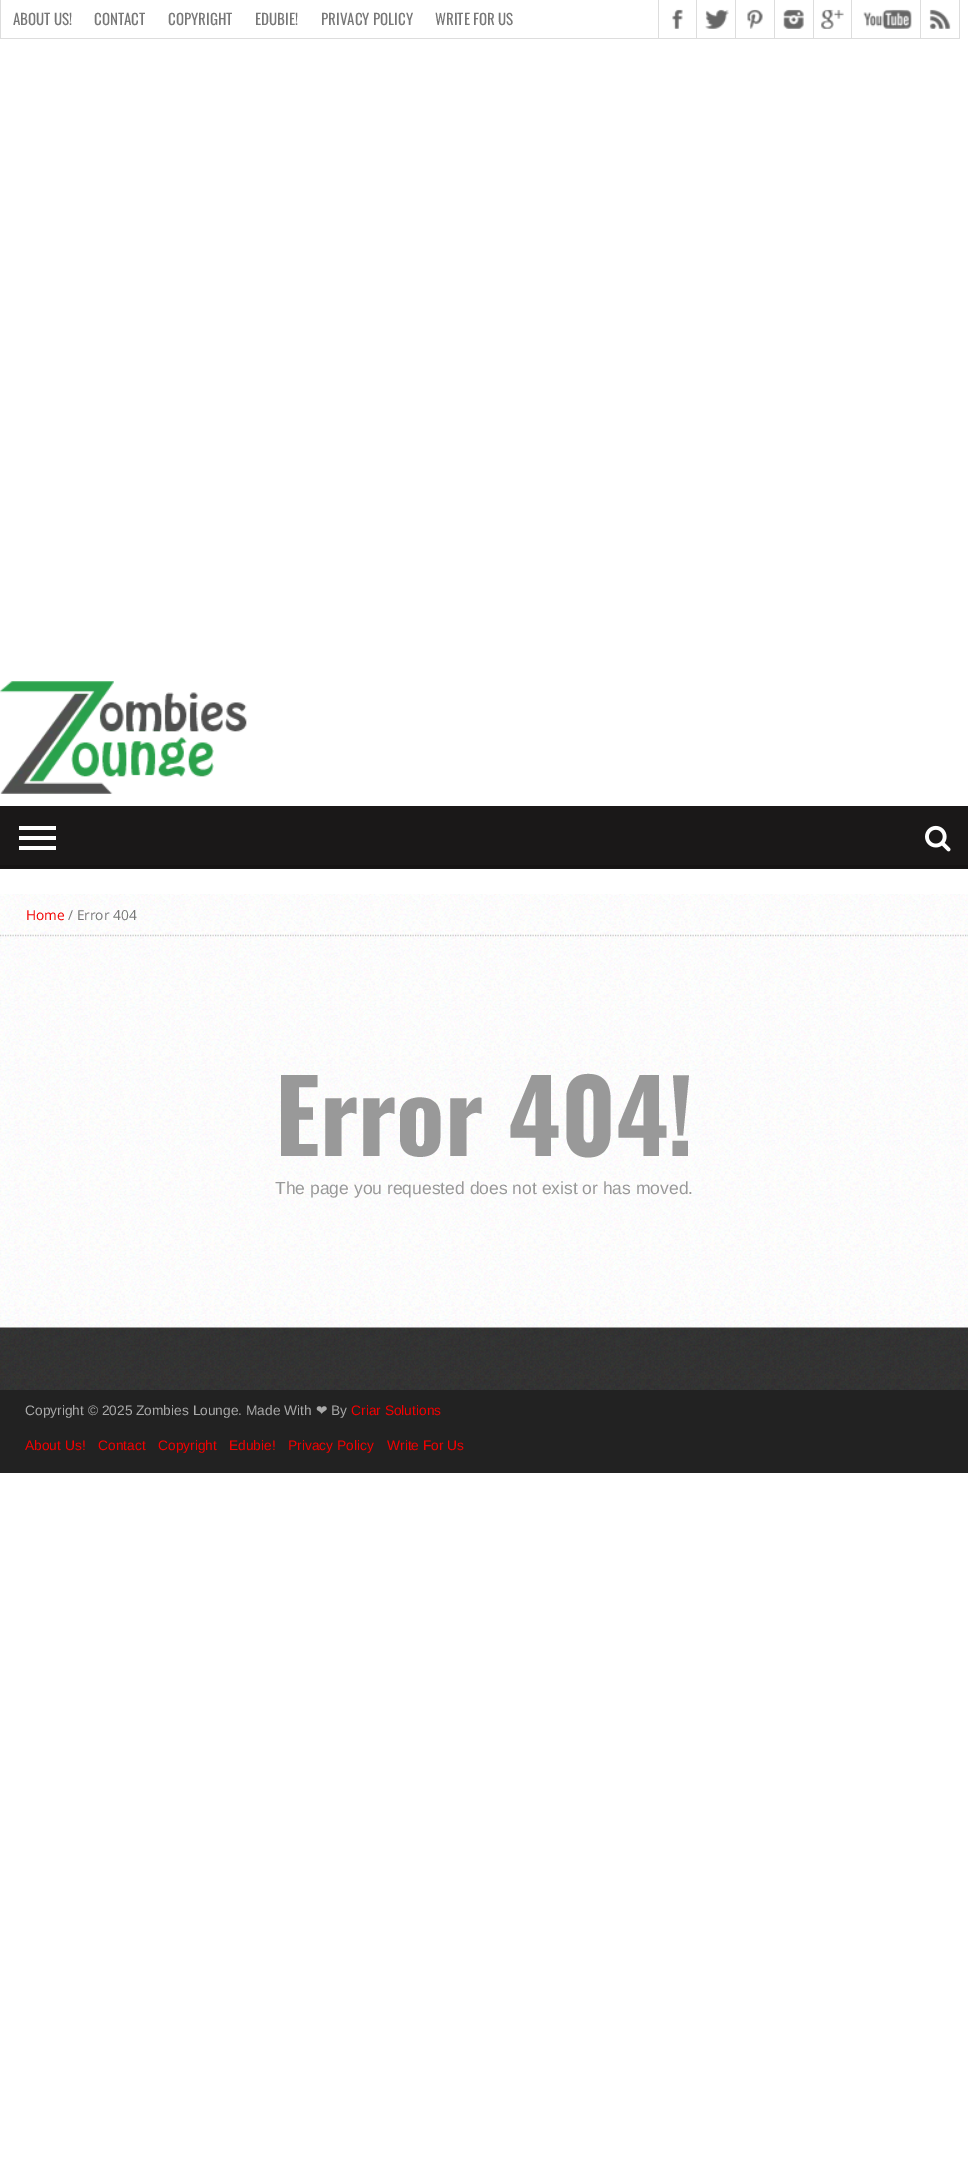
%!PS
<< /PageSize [968 2172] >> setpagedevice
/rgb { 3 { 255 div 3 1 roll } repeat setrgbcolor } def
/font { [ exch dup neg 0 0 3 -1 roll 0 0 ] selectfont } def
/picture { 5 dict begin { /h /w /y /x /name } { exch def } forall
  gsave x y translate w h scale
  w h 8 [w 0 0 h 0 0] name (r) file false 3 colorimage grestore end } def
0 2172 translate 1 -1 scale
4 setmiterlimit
255 255 255 rgb
0 0 968 2172 rectfill
[
  [959 0 1 39 221 221 221]
  [0 38 960 1 221 221 221]
  [0 0 1 39 221 221 221]
  [658 0 1 38 221 221 221]
] { aload pop rgb rectfill } forall
(img/1.rgb) 672 9 11 20 picture
696 0 1 38 rectfill
(img/2.rgb) 705 9 24 20 picture
735 0 1 38 rectfill
(img/3.rgb) 747 9 16 20 picture
774 0 1 38 rectfill
(img/4.rgb) 783 9 21 20 picture
813 0 1 38 rectfill
(img/5.rgb) 821 9 23 20 picture
851 0 1 38 rectfill
(img/6.rgb) 863 9 49 20 picture
920 0 1 38 rectfill
(img/7.rgb) 929 9 22 20 picture
(img/8.rgb) 0 681 247 113 picture
[
  [0 806 968 63 26 24 24]
  [0 865 968 3 22 20 20]
  [19 826 37 4 255 255 255]
  [19 836 37 4 255 255 255]
  [19 846 37 4 255 255 255]
] { aload pop rgb rectfill } forall
(img/9.rgb) 925 825 26 27 picture
(img/10.rgb) 0 894 968 434 picture
204 204 204 rgb
1.2 setlinewidth
[1.25 1.25] 0 setdash
0 935.5 moveto 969 935.5 lineto stroke
(img/11.rgb) 0 1327 968 63 picture
34 34 34 rgb
0 1390 968 83 rectfill
/Oswald-Regular 15 font
119 119 119 rgb
[
  [(ABOUT US!) 13 25]
  [(CONTACT) 94 25]
  [(COPYRIGHT) 168 25]
  [(EDUBIE!) 255 25]
  [(PRIVACY POLICY) 321 25]
  [(WRITE FOR US) 435 25]
] { aload pop moveto show } forall
/OpenSans-Regular 13.75 font
242 0 0 rgb
26 920 moveto (Home) show
119 119 119 rgb
68 920 moveto (/ Error 404) show
/Oswald-Bold 100 font
153 153 153 rgb
275 1156 moveto (Error 404!) show
/LiberationSans-Regular 17.5 font
275 1194 moveto (The page you requested does not exist or has moved.) show
/LiberationSans-Regular 13.75 font
170 170 170 rgb
25 1415 moveto (Copyright © 2025 Zombies Lounge. Made With) show
/DejaVuSans-Regular 13.75 font
316 1415 moveto (❤) show
/LiberationSans-Regular 13.75 font
331 1415 moveto (By) show
242 0 0 rgb
[
  [(Criar Solutions) 351 1415]
  [(About Us!) 25 1450]
  [(Contact) 98 1450]
  [(Copyright) 158 1450]
  [(Edubie!) 229 1450]
  [(Privacy Policy) 288 1450]
  [(Write For Us) 387 1450]
] { aload pop moveto show } forall
showpage
